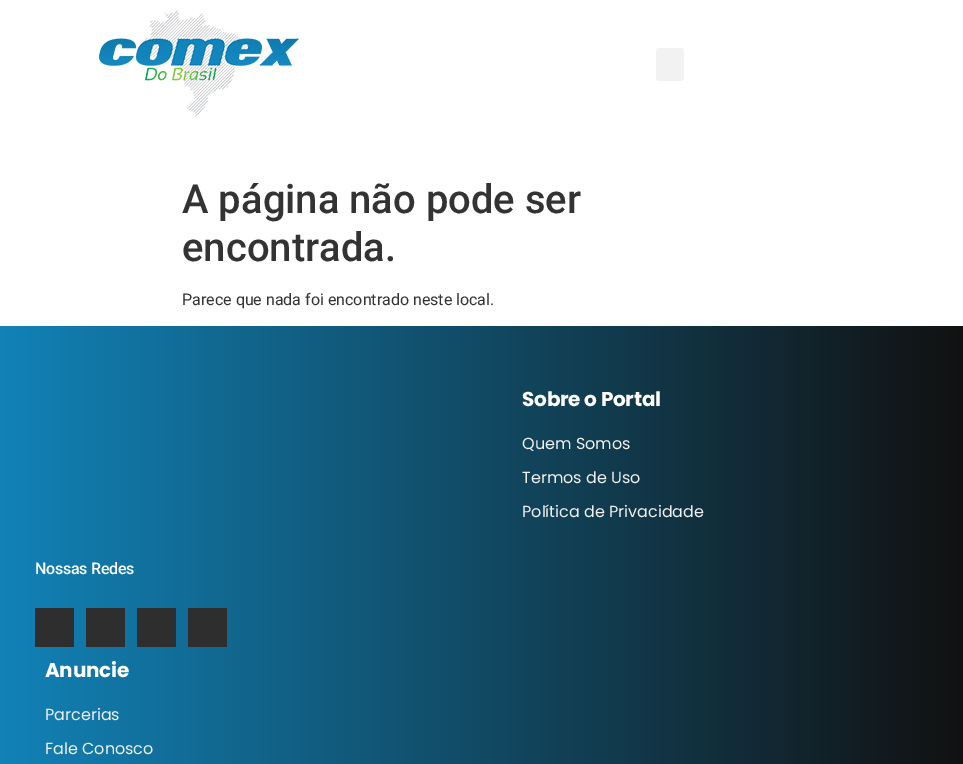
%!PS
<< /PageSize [963 764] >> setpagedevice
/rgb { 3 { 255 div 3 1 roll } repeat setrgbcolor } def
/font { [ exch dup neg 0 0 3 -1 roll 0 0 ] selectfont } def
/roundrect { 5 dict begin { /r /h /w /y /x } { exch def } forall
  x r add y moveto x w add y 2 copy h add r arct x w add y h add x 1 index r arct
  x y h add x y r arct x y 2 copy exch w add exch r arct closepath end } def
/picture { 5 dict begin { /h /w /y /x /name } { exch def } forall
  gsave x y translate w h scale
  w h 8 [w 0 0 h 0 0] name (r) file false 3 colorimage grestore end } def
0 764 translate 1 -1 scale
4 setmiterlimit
255 255 255 rgb
0 0 963 764 rectfill
(img/1.rgb) 99 10 200 108 picture
242 242 242 rgb
656 48 28 33 3 roundrect fill
gsave 0 326 moveto 963 326 lineto 963 764 lineto 0 764 lineto closepath clip newpath
<< /ShadingType 2 /ColorSpace /DeviceRGB /Coords [0 574 963 574] /Extend [true true] /Function << /FunctionType 2 /Domain [0 1] /C0 [0.067 0.51 0.718] /C1 [0.067 0.067 0.067] /N 1 >> >> shfill grestore
[
  [35 608 39 39 46 46 46]
  [86 608 39 39 46 46 46]
  [137 608 39 39 46 46 46]
  [188 608 39 39 46 46 46]
] { aload pop rgb rectfill } forall
/Roboto-Medium 40 font
51 51 51 rgb
182 213 moveto (A página não pode ser) show
182 261 moveto (encontrada.) show
/Roboto-Regular 16 font
182 305 moveto (Parece que nada foi encontrado neste local.) show
/Poppins-Bold 20 font
255 255 255 rgb
522 406 moveto -0.25 0 (Sobre o Portal) ashow
/Poppins-Regular 16 font
241 241 241 rgb
[
  [(Quem Somos) 522 449]
  [(Termos de Uso) 522 483]
  [(Política de Privacidade) 522 517]
] { aload pop moveto show } forall
/Roboto-Medium 16 font
255 255 255 rgb
35 574 moveto -0.25 0 (Nossas Redes) ashow
/Poppins-Bold 20 font
45 677 moveto -0.25 0 (Anuncie) ashow
/Poppins-Regular 16 font
241 241 241 rgb
45 720 moveto (Parcerias) show
45 754 moveto (Fale Conosco) show
showpage
